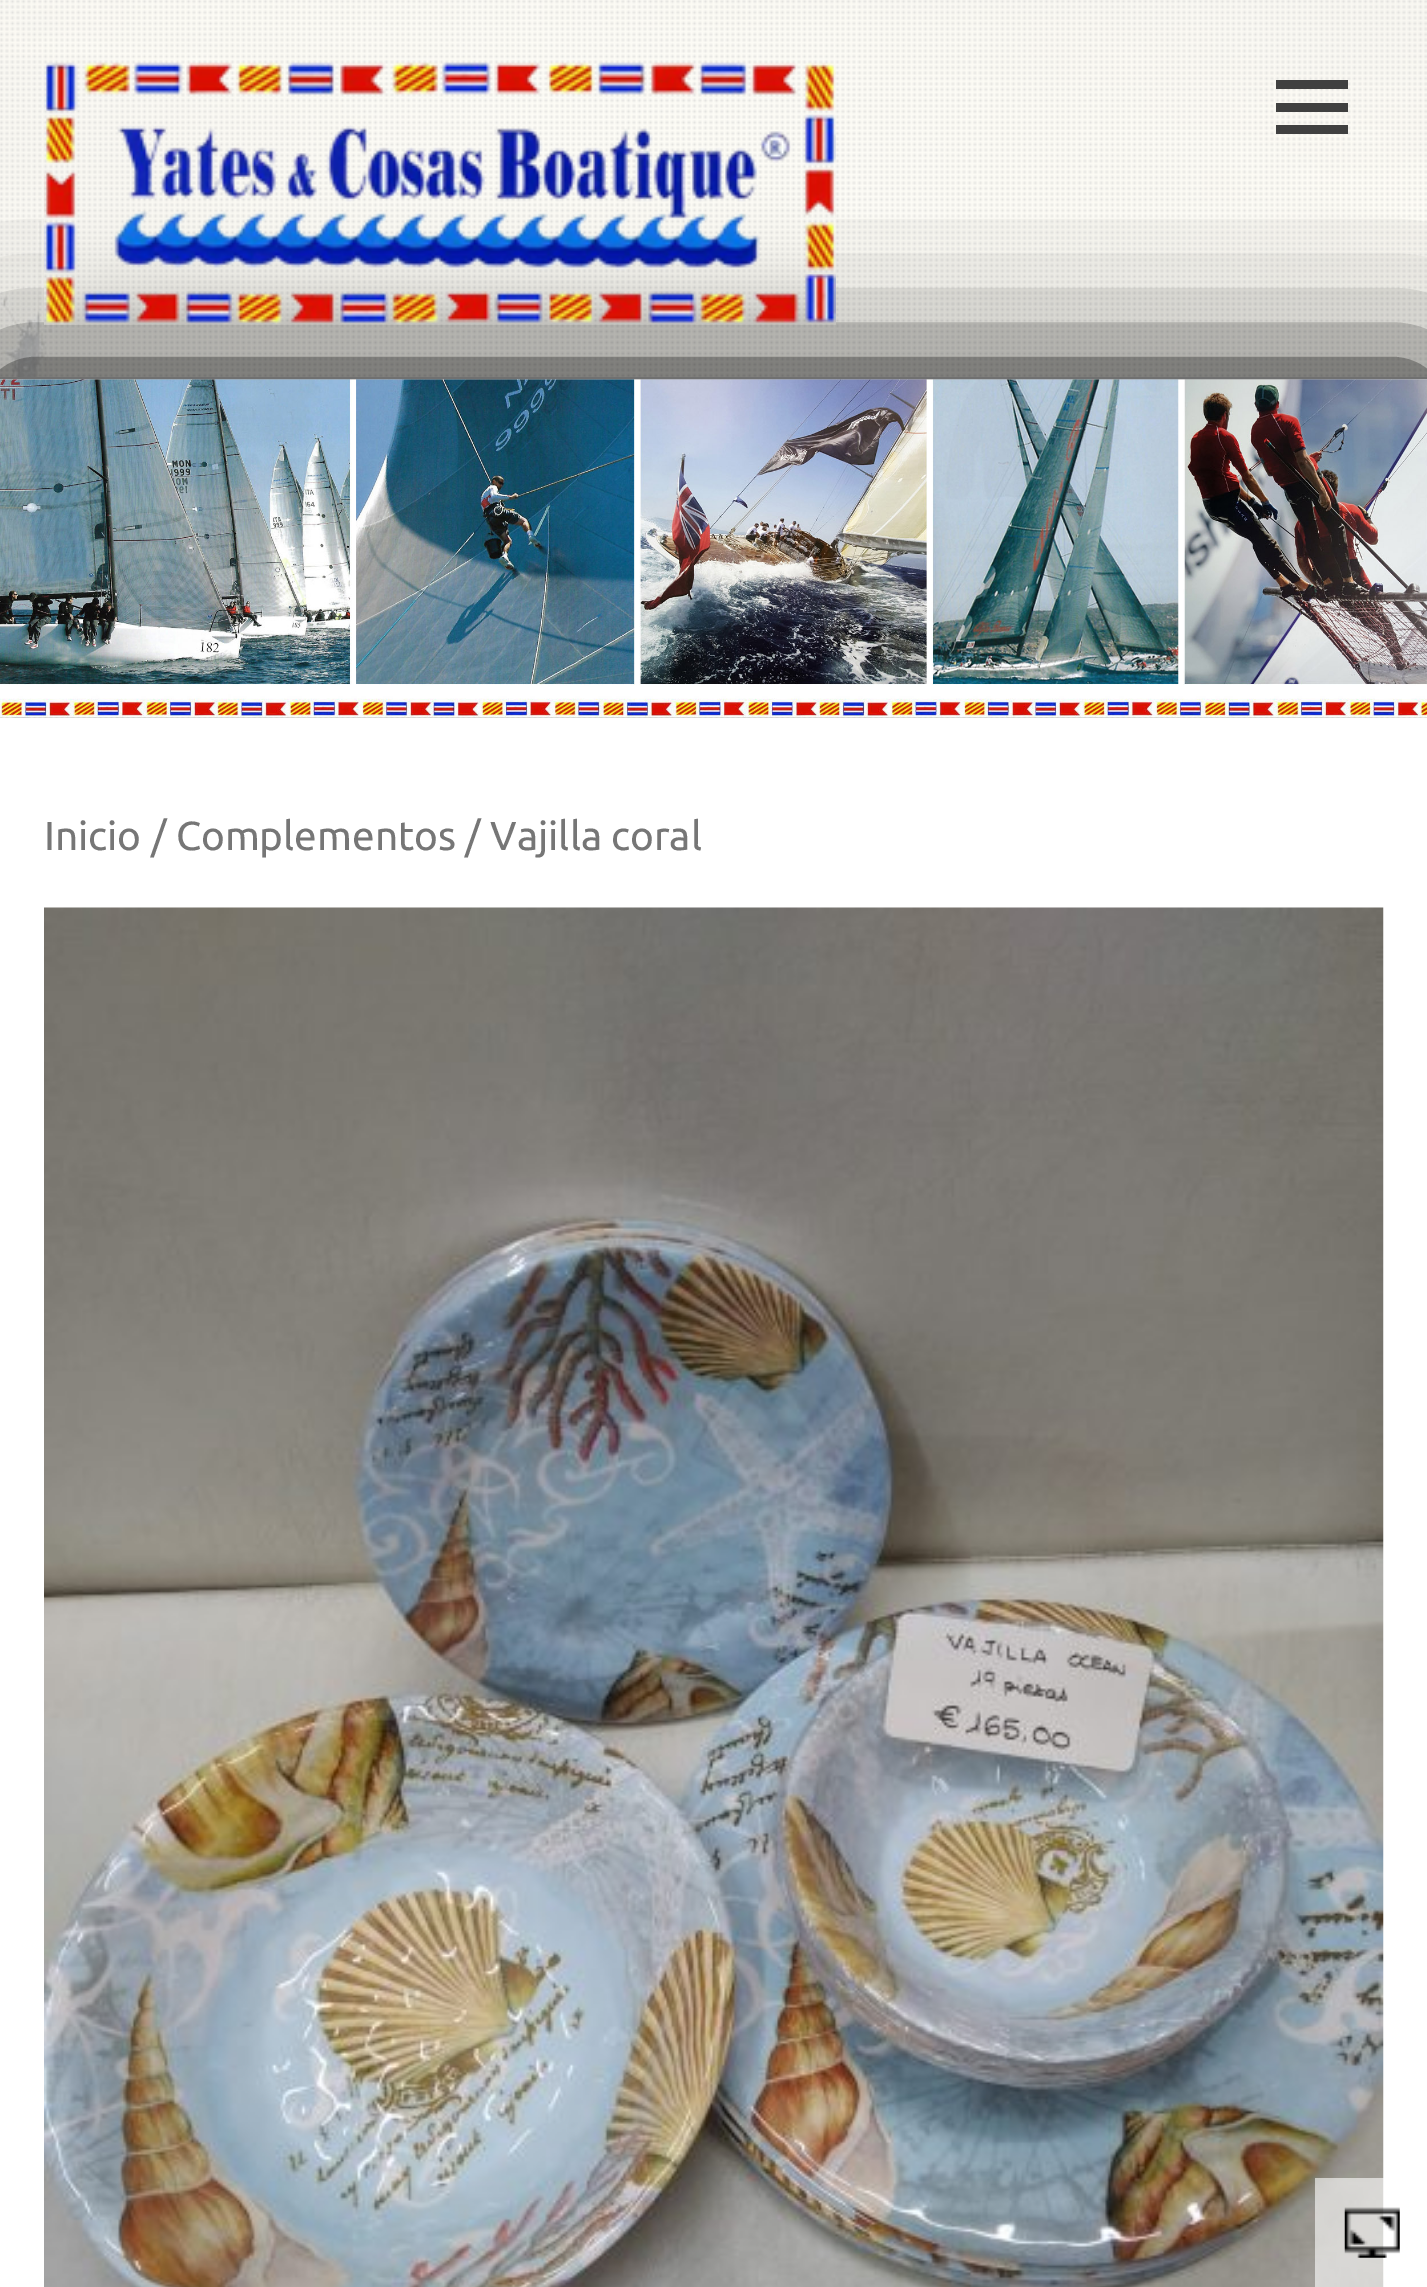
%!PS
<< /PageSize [1427 2287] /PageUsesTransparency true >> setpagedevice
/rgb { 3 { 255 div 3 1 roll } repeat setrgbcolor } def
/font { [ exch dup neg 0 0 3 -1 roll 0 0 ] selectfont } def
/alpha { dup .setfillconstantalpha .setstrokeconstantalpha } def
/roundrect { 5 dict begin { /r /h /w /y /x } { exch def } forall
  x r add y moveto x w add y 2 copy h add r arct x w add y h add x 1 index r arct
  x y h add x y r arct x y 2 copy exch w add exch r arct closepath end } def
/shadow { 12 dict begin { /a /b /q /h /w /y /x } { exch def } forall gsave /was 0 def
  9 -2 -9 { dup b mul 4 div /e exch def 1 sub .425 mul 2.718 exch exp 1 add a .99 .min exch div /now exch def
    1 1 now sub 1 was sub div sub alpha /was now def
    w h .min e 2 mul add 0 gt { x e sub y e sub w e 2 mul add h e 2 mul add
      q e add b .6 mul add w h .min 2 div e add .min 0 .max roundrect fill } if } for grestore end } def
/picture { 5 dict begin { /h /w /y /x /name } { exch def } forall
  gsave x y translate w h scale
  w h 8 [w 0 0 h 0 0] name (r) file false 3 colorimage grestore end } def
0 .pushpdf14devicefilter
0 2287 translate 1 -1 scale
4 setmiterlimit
255 255 255 rgb
0 0 1427 2287 rectfill
(img/1.rgb) 0 0 1427 718 picture
(img/2.rgb) 0 0 1427 718 picture
0.8 alpha
0 0 1427 377 rectfill
1 alpha
221 221 221 rgb
0 377 1427 3 rectfill
0 0 0 rgb
-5 374 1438 349 0 69 1 shadow
(img/3.rgb) 44 62 792 263 picture
64 64 64 rgb
1276 134 moveto 1276 125 lineto 1348 125 lineto 1348 134 lineto closepath 1276 80 moveto 1348 80 lineto 1348 89 lineto 1276 89 lineto closepath 1276 112 moveto 1276 103 lineto 1348 103 lineto 1348 112 lineto closepath fill
0 0 0 rgb
-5 712 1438 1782 0 69 1 shadow
(img/4.rgb) 0 379 1427 339 picture
255 255 255 rgb
0 718 1427 1569 rectfill
(img/5.rgb) 44 907 1340 1380 picture
0.6 alpha
1315 2178 69 109 rectfill
1 alpha
(img/6.rgb) 1344 2207 56 51 picture
/Ubuntu-Regular 40.5 font
118 118 118 rgb
44 850 moveto (Inicio / Complementos / Vajilla coral) show
.poppdf14devicefilter showpage
